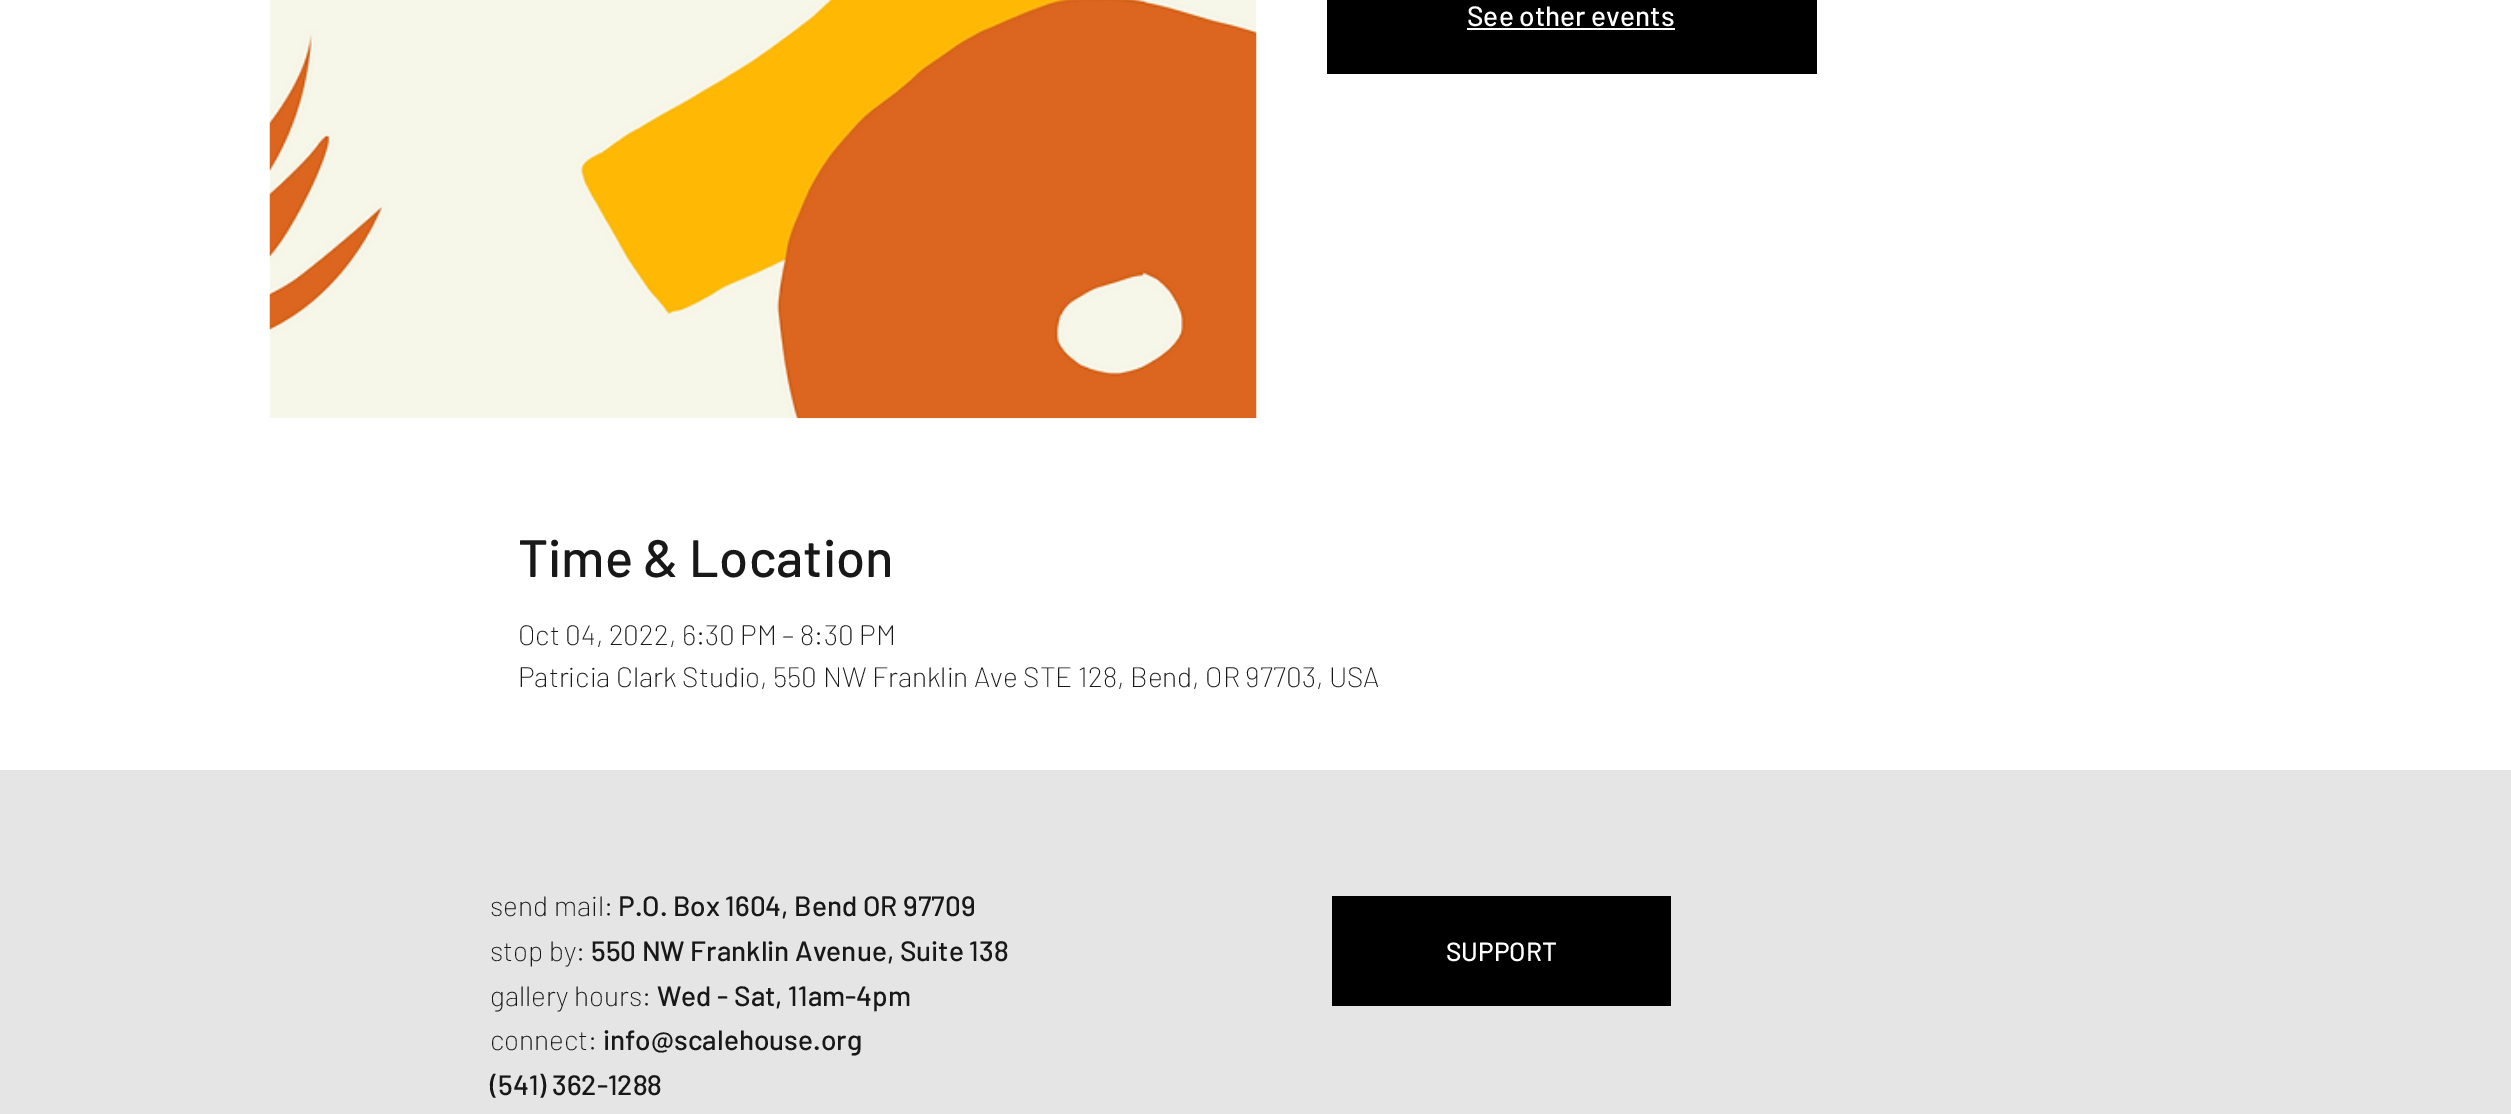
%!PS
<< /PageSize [2511 1114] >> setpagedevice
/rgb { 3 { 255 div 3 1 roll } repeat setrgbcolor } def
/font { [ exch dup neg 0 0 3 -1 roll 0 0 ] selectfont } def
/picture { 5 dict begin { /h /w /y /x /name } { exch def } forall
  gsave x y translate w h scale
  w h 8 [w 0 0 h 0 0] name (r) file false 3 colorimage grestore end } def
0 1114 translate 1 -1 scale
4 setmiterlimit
255 255 255 rgb
0 0 2511 1114 rectfill
(img/1.rgb) 269 0 988 419 picture
[
  [1327 0 490 74 0 0 0]
  [1467 28 208 2 255 255 255]
  [0 770 2511 344 229 229 229]
  [1332 896 339 110 0 0 0]
] { aload pop rgb rectfill } forall
/Barlow-Medium 28 font
255 255 255 rgb
1467 26 moveto (See other events) show
/Barlow-Medium 52.5 font
24 24 24 rgb
518 577 moveto (Time & Location) show
/Barlow-ExtraLight 28 font
[
  [(Oct 04, 2022, 6:30 PM – 8:30 PM) 518 645]
  [(Patricia Clark Studio, 550 NW Franklin Ave STE 128, Bend, OR 97703, USA) 518 687]
  [(send mail:) 490 916]
] { aload pop moveto show } forall
/Barlow-Medium 28 font
618 916 moveto (P.O. Box 1604, Bend OR 97709) show
/Barlow-ExtraLight 28 font
490 961 moveto (stop by:) show
/Barlow-Medium 28 font
591 961 moveto (550 NW Franklin Avenue, Suite 138) show
/Barlow-ExtraLight 28 font
490 1006 moveto (gallery hours:) show
/Barlow-Medium 28 font
657 1006 moveto (Wed - Sat, 11am-4pm) show
/Barlow-ExtraLight 28 font
490 1050 moveto (connect:) show
/Barlow-Medium 28 font
603 1050 moveto (info@scalehouse.org) show
490 1095 moveto (\(541\) 362-1288) show
/Barlow-Medium 26.25 font
255 255 255 rgb
1446 961 moveto (SUPPORT) show
showpage
